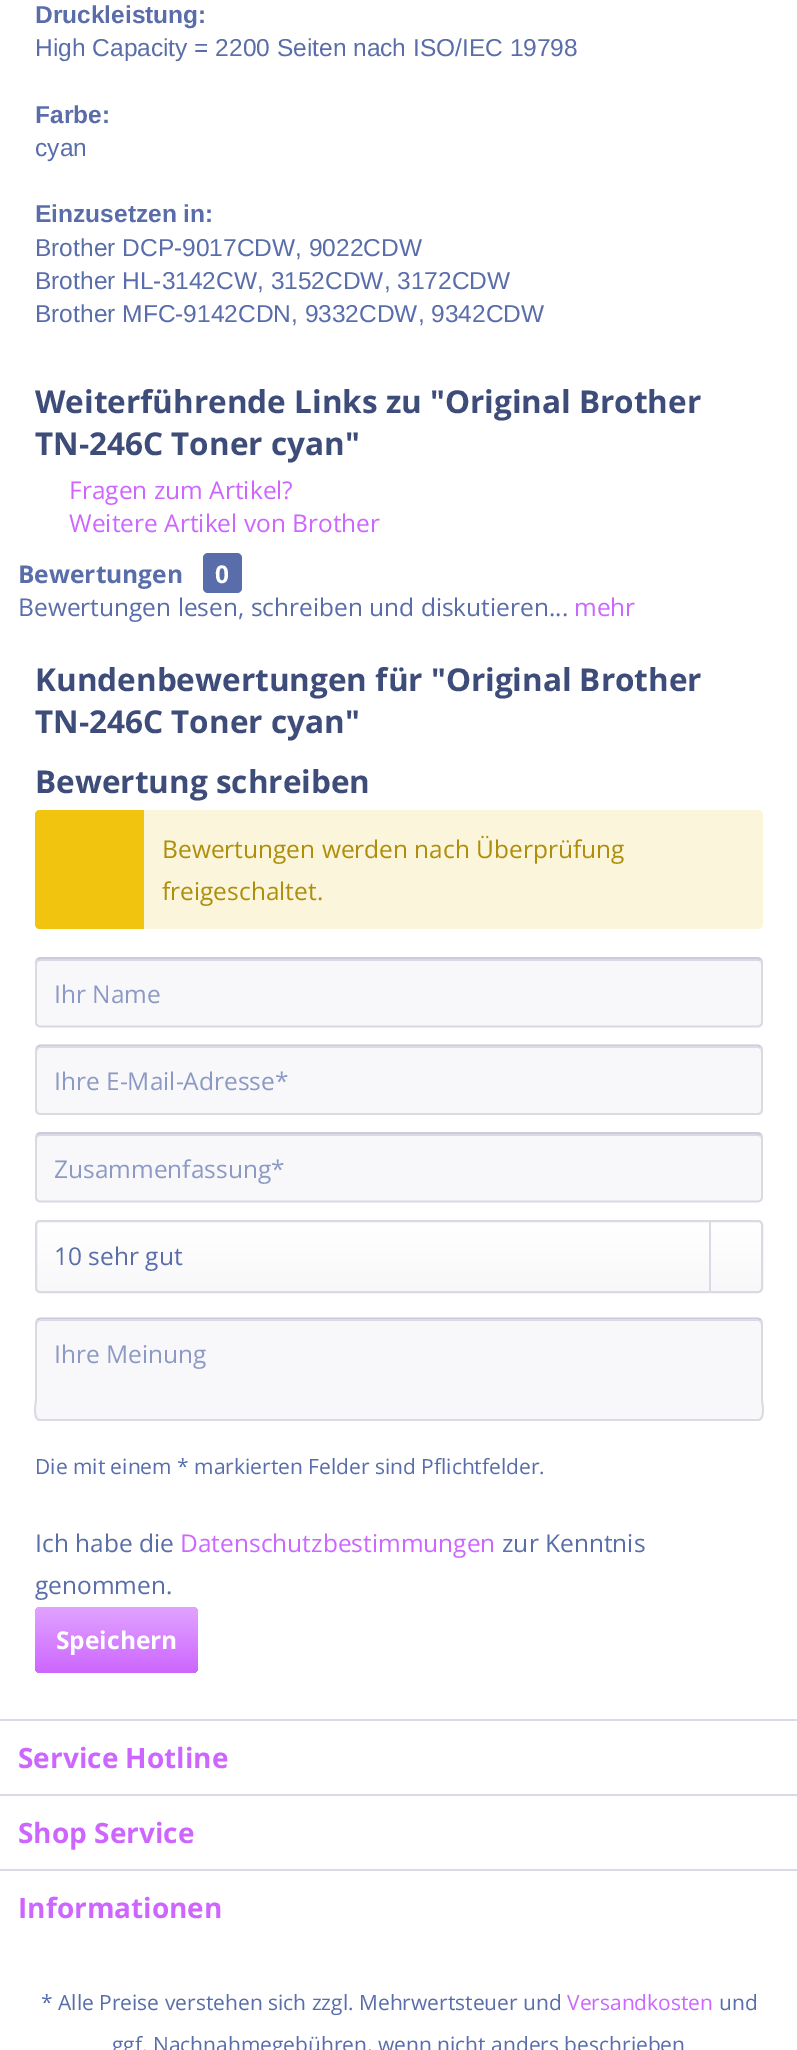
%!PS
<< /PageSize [797 2050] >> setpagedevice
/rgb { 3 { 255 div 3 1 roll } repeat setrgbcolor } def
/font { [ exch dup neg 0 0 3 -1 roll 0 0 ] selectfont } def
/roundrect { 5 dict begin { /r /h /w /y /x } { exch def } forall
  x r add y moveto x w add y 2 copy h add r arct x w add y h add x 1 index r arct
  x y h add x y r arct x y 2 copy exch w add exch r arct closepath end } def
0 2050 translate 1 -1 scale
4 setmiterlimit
255 255 255 rgb
0 0 797 2050 rectfill
89 109 170 rgb
203 553 39 40 5 roundrect fill
251 245 219 rgb
35 810 728 119 5 roundrect fill
241 196 15 rgb
40 810 moveto 144 810 lineto 144 929 lineto 40 929 lineto 37 929 35 927 35 924 curveto 35 815 lineto 35 812 37 810 40 810 curveto closepath fill
248 248 250 rgb
35 957 728 70 5 roundrect fill
218 218 229 rgb
40 961 moveto 758 961 lineto 760 961 761 962 761 964 curveto 761 961 760 959 757 959 curveto 41 959 lineto 38 960 lineto 37 961 lineto 37 964 lineto 37 962 38 961 40 961 curveto closepath fill
203 203 219 rgb
1.8 setlinewidth
37 959.5 moveto 40 958 lineto 758 958 lineto 761 959.5 lineto stroke
218 218 229 rgb
761 959.5 moveto 761.5 960 762 961.5 762 962.5 curveto 762 1022 lineto 762 1023 761.5 1024.5 761 1025 curveto 760 1026 759 1026.5 758 1026.5 curveto 40 1026.5 lineto 39 1026.5 38 1026 37 1025 curveto 36.5 1024.5 36 1023 36 1022 curveto 36 962.5 lineto 36 961.5 36.5 960 37 959.5 curveto stroke
248 248 250 rgb
35 1045 728 70 5 roundrect fill
218 218 229 rgb
40 1048 moveto 758 1048 lineto 760 1048 761 1050 761 1052 curveto 761 1049 760 1047 757 1047 curveto 41 1047 lineto 38 1048 lineto 37 1049 lineto 37 1052 lineto 37 1050 38 1048 40 1048 curveto closepath fill
203 203 219 rgb
37 1047 moveto 40 1045.5 lineto 758 1045.5 lineto 761 1047 lineto stroke
218 218 229 rgb
761 1047 moveto 761.5 1047.5 762 1049 762 1050 curveto 762 1109.5 lineto 762 1110.5 761.5 1112 761 1112.5 curveto 760 1113.5 759 1114 758 1114 curveto 40 1114 lineto 39 1114 38 1113.5 37 1112.5 curveto 36.5 1112 36 1110.5 36 1109.5 curveto 36 1050 lineto 36 1049 36.5 1047.5 37 1047 curveto stroke
248 248 250 rgb
35 1132 728 70 5 roundrect fill
218 218 229 rgb
40 1136 moveto 758 1136 lineto 760 1136 761 1137 761 1139 curveto 761 1136 760 1134 757 1134 curveto 41 1134 lineto 38 1135 lineto 37 1136 lineto 37 1139 lineto 37 1137 38 1136 40 1136 curveto closepath fill
203 203 219 rgb
37 1134.5 moveto 40 1133 lineto 758 1133 lineto 761 1134.5 lineto stroke
218 218 229 rgb
761 1134.5 moveto 761.5 1135 762 1136.5 762 1137.5 curveto 762 1197 lineto 762 1198 761.5 1199.5 761 1200 curveto 760 1201 759 1201.5 758 1201.5 curveto 40 1201.5 lineto 39 1201.5 38 1201 37 1200 curveto 36.5 1199.5 36 1198 36 1197 curveto 36 1137.5 lineto 36 1136.5 36.5 1135 37 1134.5 curveto stroke
gsave 37 1222 724 70 4 roundrect clip newpath
<< /ShadingType 2 /ColorSpace /DeviceRGB /Coords [399 1222 399 1292] /Extend [true true] /Function << /FunctionType 2 /Domain [0 1] /C0 [1 1 1] /C1 [0.973 0.973 0.98] /N 1 >> >> shfill grestore
2 setlinewidth
36 1221 726 71 4 roundrect stroke
709 1222 2 70 rectfill
248 248 250 rgb
35 1318 728 103 5 roundrect fill
218 218 229 rgb
40 1321 moveto 758 1321 lineto 760 1321 761 1323 761 1325 curveto 761 1322 760 1320 757 1320 curveto 41 1320 lineto 38 1321 lineto 37 1322 lineto 37 1325 lineto 37 1323 38 1321 40 1321 curveto closepath fill
203 203 219 rgb
1.8 setlinewidth
37 1320 moveto 40 1318.5 lineto 758 1318.5 lineto 761 1320 lineto stroke
218 218 229 rgb
761 1320 moveto 762 1323 lineto 762 1400.5 lineto 762 1400.5 766 1420 758 1420 curveto 40 1420 lineto 32 1420 36 1400.5 36 1400.5 curveto 36 1323 lineto 37 1320 lineto stroke
gsave 35 1607 163 66 5 roundrect clip newpath
<< /ShadingType 2 /ColorSpace /DeviceRGB /Coords [116 1607 116 1673] /Extend [true true] /Function << /FunctionType 2 /Domain [0 1] /C0 [0.882 0.639 1] /C1 [0.804 0.4 1] /N 1 >> >> shfill grestore
[
  [0 1719 797 2 218 218 229]
  [0 1794 797 2 218 218 229]
  [0 1869 797 2 218 218 229]
] { aload pop rgb rectfill } forall
/LiberationSans-Bold 24.5 font
89 109 170 rgb
35 23 moveto (Druckleistung:) show
/LiberationSans-Regular 24.5 font
35 56 moveto (High Capacity = 2200 Seiten nach ISO/IEC 19798) show
/LiberationSans-Bold 24.5 font
35 123 moveto (Farbe:) show
/LiberationSans-Regular 24.5 font
35 156 moveto (cyan) show
/LiberationSans-Bold 24.5 font
35 222 moveto (Einzusetzen in:) show
/LiberationSans-Regular 24.5 font
[
  [(Brother DCP-9017CDW, 9022CDW) 35 256]
  [(Brother HL-3142CW, 3152CDW, 3172CDW) 35 289]
  [(Brother MFC-9142CDN, 9332CDW, 9342CDW) 35 322]
] { aload pop moveto show } forall
/OpenSans-Bold 31.5 font
62 76 121 rgb
35 413 moveto (Weiterführende Links zu "Original Brother) show
35 455 moveto (TN-246C Toner cyan") show
/OpenSans-Regular 24.5 font
205 102 255 rgb
69 499 moveto (Fragen zum Artikel?) show
69 532 moveto (Weitere Artikel von Brother) show
/OpenSans-Bold 24.5 font
89 109 170 rgb
18 583 moveto (Bewertungen) show
255 255 255 rgb
215 583 moveto (0) show
/OpenSans-Regular 24.5 font
89 109 170 rgb
18 616 moveto (Bewertungen lesen, schreiben und diskutieren...) show
205 102 255 rgb
574 616 moveto (mehr) show
/OpenSans-Bold 31.5 font
62 76 121 rgb
[
  [(Kundenbewertungen für "Original Brother) 35 691]
  [(TN-246C Toner cyan") 35 733]
  [(Bewertung schreiben) 35 793]
] { aload pop moveto show } forall
/OpenSans-Regular 24.5 font
174 142 10 rgb
162 858 moveto (Bewertungen werden nach Überprüfung) show
162 900 moveto (freigeschaltet.) show
140 153 196 rgb
[
  [(Ihr Name) 54 1003]
  [(Ihre E-Mail-Adresse*) 54 1090]
  [(Zusammenfassung*) 54 1178]
] { aload pop moveto show } forall
89 109 170 rgb
54 1265 moveto (10 sehr gut) show
140 153 196 rgb
54 1363 moveto (Ihre Meinung) show
/OpenSans-Regular 21 font
89 109 170 rgb
35 1474 moveto (Die mit einem * markierten Felder sind Pflichtfelder.) show
/OpenSans-Regular 24.5 font
35 1552 moveto (Ich habe die) show
205 102 255 rgb
180 1552 moveto (Datenschutzbestimmungen) show
89 109 170 rgb
502 1552 moveto (zur Kenntnis) show
35 1594 moveto (genommen.) show
/OpenSans-Bold 24.5 font
255 255 255 rgb
56 1649 moveto (Speichern) show
/OpenSans-Bold 28 font
205 102 255 rgb
[
  [(Service Hotline) 18 1768]
  [(Shop Service) 18 1843]
  [(Informationen) 18 1918]
] { aload pop moveto show } forall
/OpenSans-Regular 21 font
89 109 170 rgb
41 2010 moveto (* Alle Preise verstehen sich zzgl. Mehrwertsteuer und) show
205 102 255 rgb
567 2010 moveto (Versandkosten) show
89 109 170 rgb
719 2010 moveto (und) show
112 2052 moveto (ggf. Nachnahmegebühren, wenn nicht anders beschrieben) show
showpage
